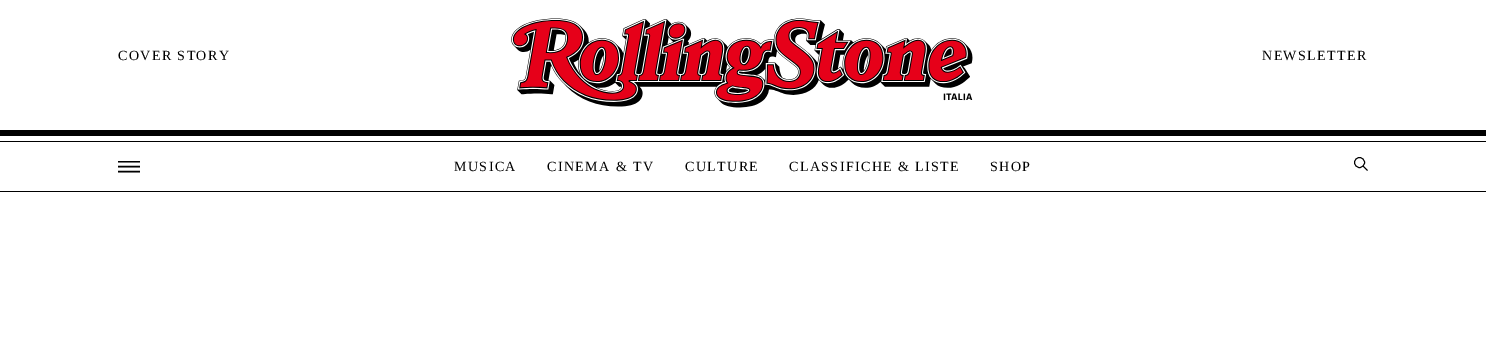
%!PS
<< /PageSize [1486 355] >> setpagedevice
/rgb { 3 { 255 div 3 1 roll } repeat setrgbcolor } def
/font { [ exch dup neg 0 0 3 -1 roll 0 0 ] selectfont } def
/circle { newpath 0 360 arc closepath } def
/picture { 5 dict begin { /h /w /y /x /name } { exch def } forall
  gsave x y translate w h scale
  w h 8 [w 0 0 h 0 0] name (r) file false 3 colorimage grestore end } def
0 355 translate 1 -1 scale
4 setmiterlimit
255 255 255 rgb
0 0 1486 355 rectfill
(img/1.rgb) 511 18 462 90 picture
0 0 0 rgb
0 130 1486 6 rectfill
0 141 1486 1 rectfill
gsave
118 161 22 12 rectclip
1.5 setlinewidth
118 161.5 moveto 140 161.5 lineto stroke
grestore
1.5 setlinewidth
118 166.5 moveto 140 166.5 lineto 118 171.5 moveto 140 171.5 lineto stroke
0.9 setlinewidth
1359.5 162.5 5 circle stroke
1363 166 moveto 1367.5 170.5 lineto stroke
0 191 1486 1 rectfill
/LiberationSerif-Regular 14 font
118 60 moveto 1.4 0 (COVER STORY) ashow
1262 60 moveto 1.4 0 (NEWSLETTER) ashow
454 171 moveto 1.4 0 (MUSICA) ashow
547 171 moveto 1.4 0 (CINEMA & TV) ashow
685 171 moveto 1.4 0 (CULTURE) ashow
789 171 moveto 1.4 0 (CLASSIFICHE & LISTE) ashow
990 171 moveto 1.4 0 (SHOP) ashow
showpage
